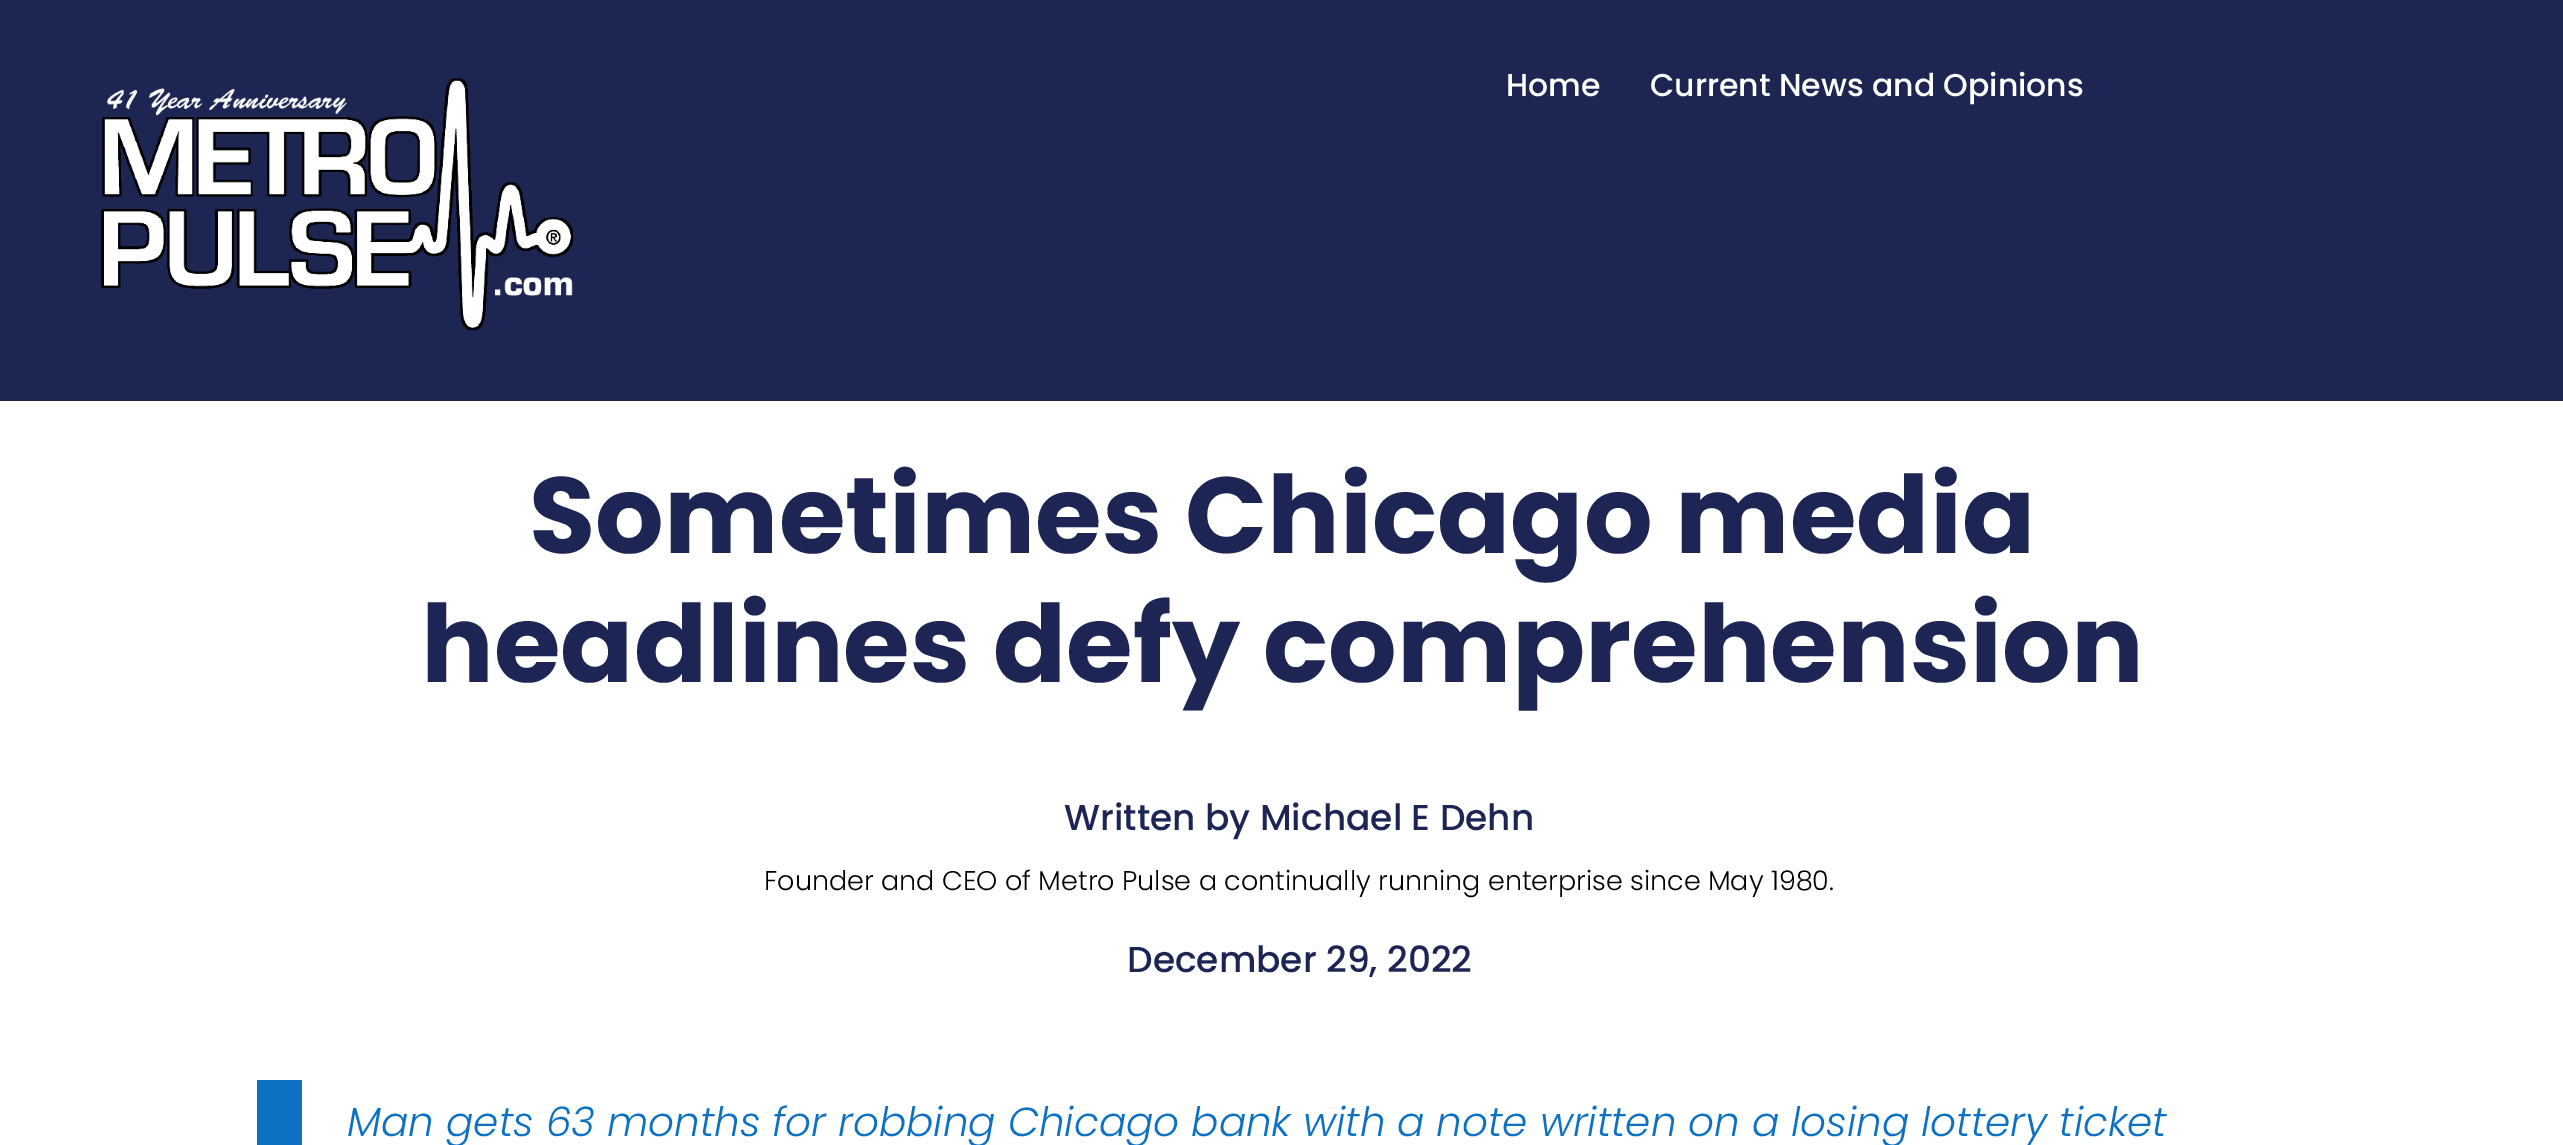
%!PS
<< /PageSize [2563 1145] >> setpagedevice
/rgb { 3 { 255 div 3 1 roll } repeat setrgbcolor } def
/font { [ exch dup neg 0 0 3 -1 roll 0 0 ] selectfont } def
/picture { 5 dict begin { /h /w /y /x /name } { exch def } forall
  gsave x y translate w h scale
  w h 8 [w 0 0 h 0 0] name (r) file false 3 colorimage grestore end } def
0 1145 translate 1 -1 scale
4 setmiterlimit
29 38 82 rgb
0 0 2563 1145 rectfill
(img/1.rgb) 101 78 473 253 picture
255 255 255 rgb
0 401 2563 744 rectfill
12 113 195 rgb
257 1080 45 65 rectfill
/Poppins-Medium 31.5 font
255 255 255 rgb
1506 96 moveto (Home) show
1650 96 moveto (Current News and Opinions) show
/Poppins-Bold 108 font
28 37 83 rgb
529 553 moveto (Sometimes Chicago media) show
421 682 moveto (headlines defy comprehension) show
/Poppins-Medium 36 font
1064 830 moveto (Written by Michael E Dehn) show
/Poppins-Light 27 font
0 0 0 rgb
764 890 moveto (Founder and CEO of Metro Pulse a continually running enterprise since May 1980.) show
/Poppins-Medium 36 font
28 37 83 rgb
1127 972 moveto (December 29, 2022) show
/Poppins-LightItalic 40.5 font
12 113 195 rgb
347 1136 moveto (Man gets 63 months for robbing Chicago bank with a note written on a losing lottery ticket) show
showpage
